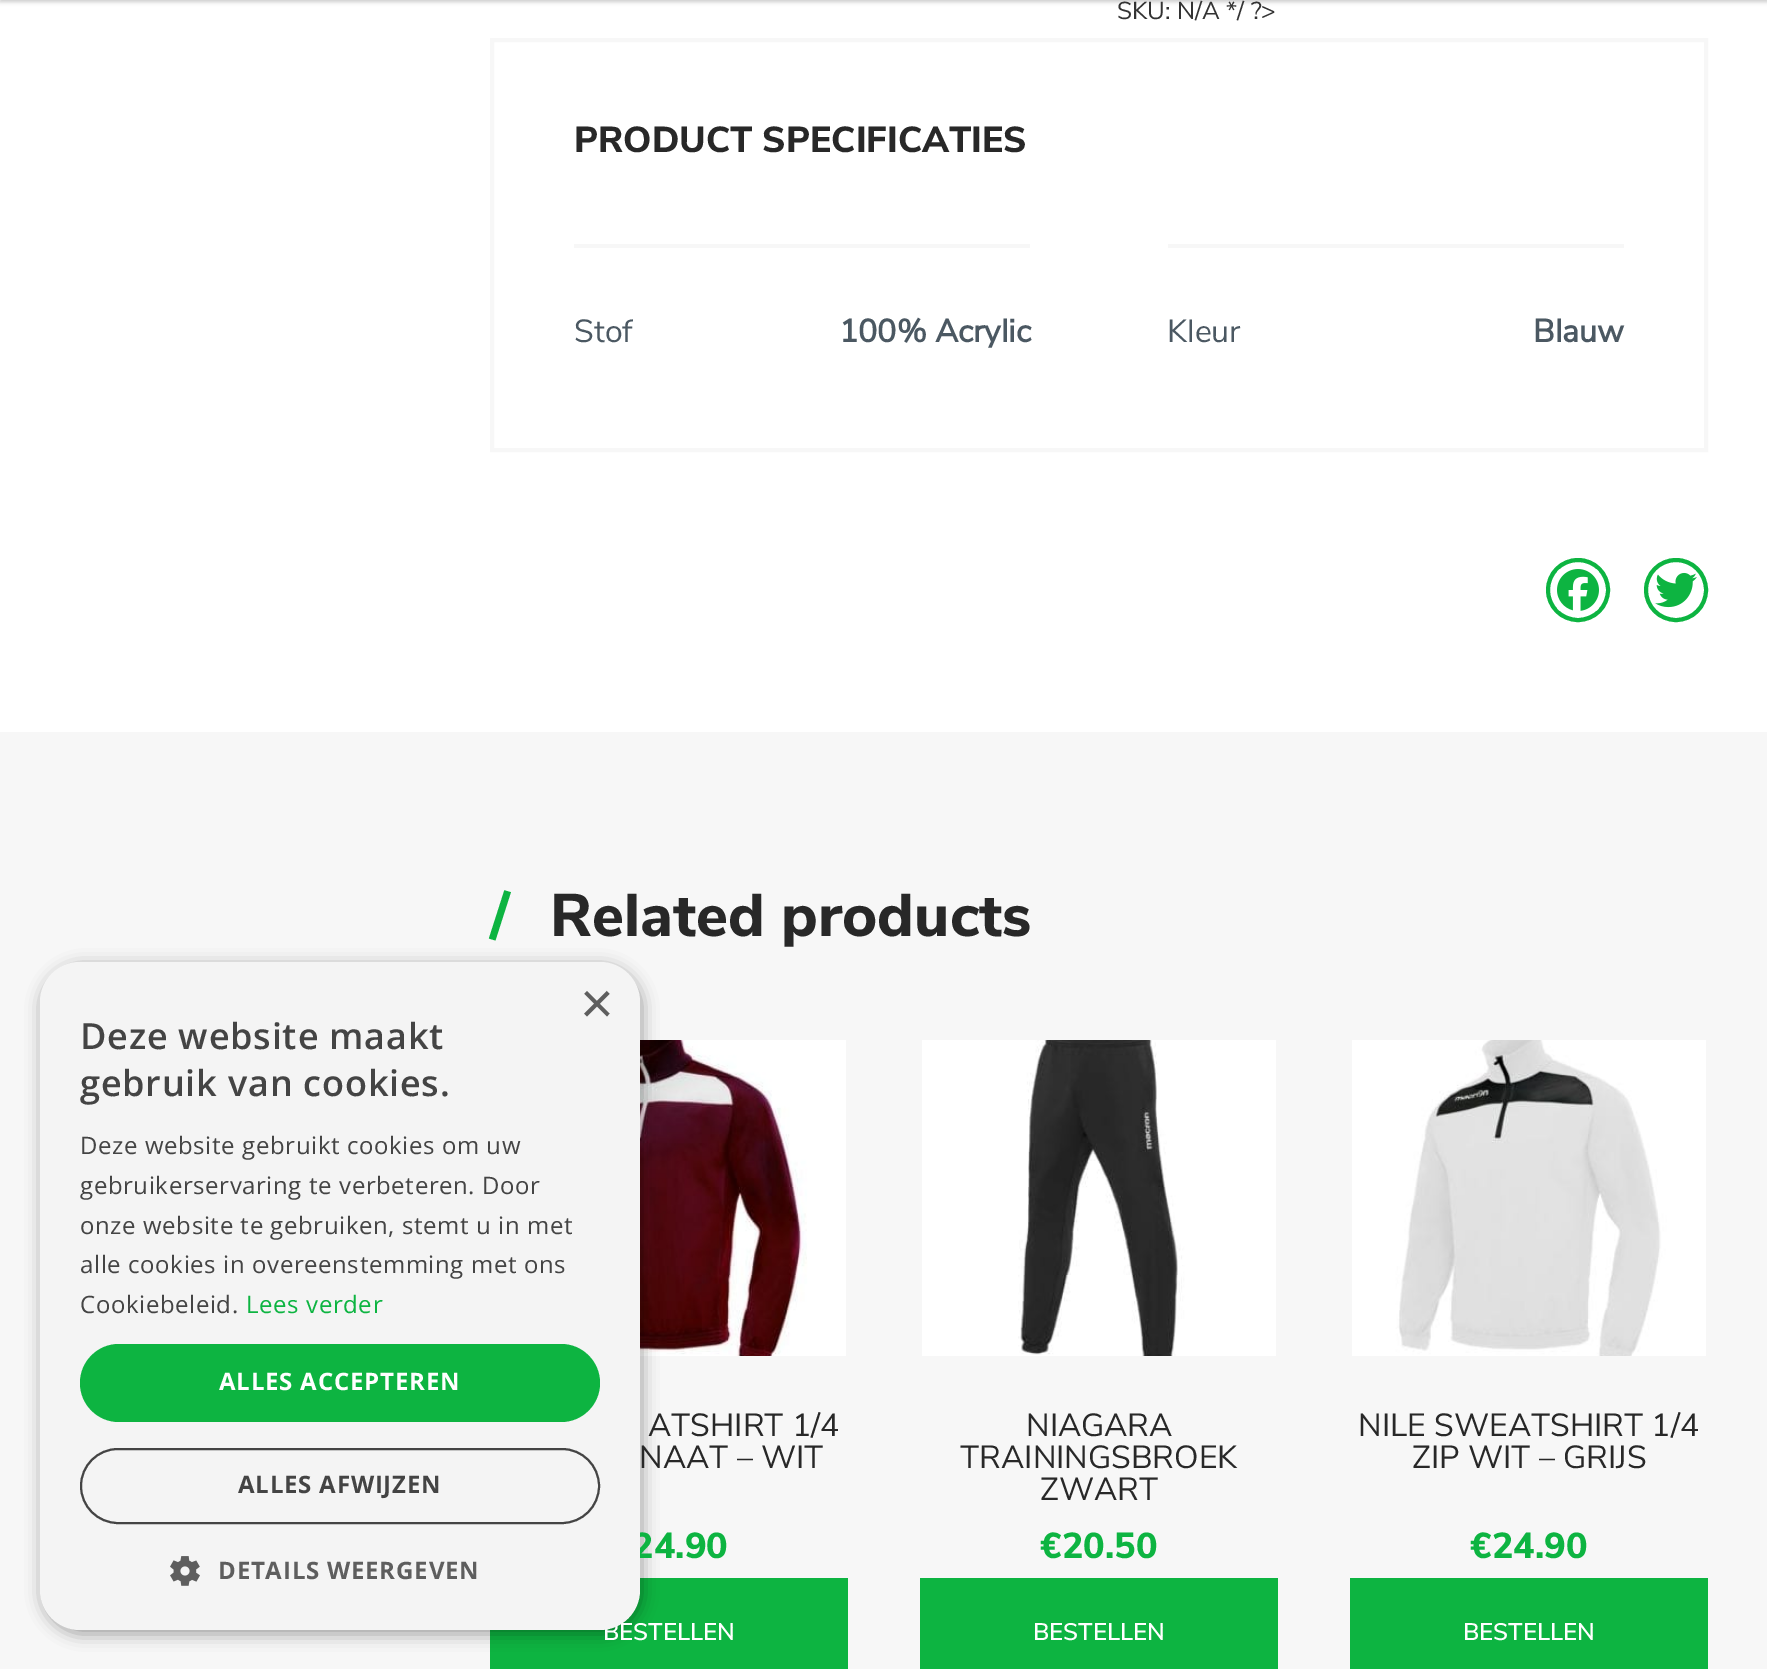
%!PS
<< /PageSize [1767 1669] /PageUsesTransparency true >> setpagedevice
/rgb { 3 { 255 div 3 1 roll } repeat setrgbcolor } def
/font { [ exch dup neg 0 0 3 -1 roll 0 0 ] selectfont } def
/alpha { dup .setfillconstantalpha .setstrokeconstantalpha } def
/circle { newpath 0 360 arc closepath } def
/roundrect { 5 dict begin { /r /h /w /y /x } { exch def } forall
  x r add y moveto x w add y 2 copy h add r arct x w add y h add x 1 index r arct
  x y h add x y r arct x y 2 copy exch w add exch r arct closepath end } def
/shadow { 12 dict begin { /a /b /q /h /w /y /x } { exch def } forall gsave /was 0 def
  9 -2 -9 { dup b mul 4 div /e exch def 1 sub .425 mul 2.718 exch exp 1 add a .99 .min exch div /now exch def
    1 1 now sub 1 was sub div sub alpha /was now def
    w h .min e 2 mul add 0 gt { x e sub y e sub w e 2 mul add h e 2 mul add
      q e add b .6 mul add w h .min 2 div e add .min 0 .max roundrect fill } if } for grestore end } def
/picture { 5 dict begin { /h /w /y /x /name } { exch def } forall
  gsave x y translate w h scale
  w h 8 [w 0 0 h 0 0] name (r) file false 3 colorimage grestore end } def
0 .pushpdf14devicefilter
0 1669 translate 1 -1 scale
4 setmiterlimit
255 255 255 rgb
0 0 1767 1669 rectfill
0 0 0 rgb
0 -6 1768 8 0 2 0.2 shadow
247 247 247 rgb
0 732 1767 937 rectfill
(img/4.rgb) 640 1040 206 316 picture
13 180 65 rgb
490 1578 358 91 rectfill
0 0 0 rgb
42 966 600 668 40 8 0.35 shadow
247 247 247 rgb
4 setlinewidth
492 40 1214 410 rectstroke
574 244 456 4 rectfill
1168 244 456 4 rectfill
13 180 65 rgb
1578 590 30 circle stroke
(img/2.rgb) 1557 569 42 42 picture
1676 590 30 circle stroke
(img/3.rgb) 1655 572 42 36 picture
(img/5.rgb) 922 1040 354 316 picture
920 1578 358 91 rectfill
(img/6.rgb) 1352 1040 354 316 picture
1350 1578 358 91 rectfill
/NunitoSans-Regular 24.5 font
51 51 51 rgb
1117 19 moveto (SKU: N/A */ ?>) show
/NunitoSans-ExtraBold 36 font
40 40 40 rgb
574 152 moveto (PRODUCT SPECIFICATIES) show
/NunitoSans-Regular 32 font
75 88 98 rgb
574 342 moveto (Stof) show
/NunitoSans-Bold 32 font
839 342 moveto (100% Acrylic) show
/NunitoSans-Regular 32 font
1167 342 moveto (Kleur) show
/NunitoSans-Bold 32 font
1533 342 moveto (Blauw) show
/NunitoSans-ExtraBold 60 font
13 180 65 rgb
490 936 moveto (/) show
40 40 40 rgb
550 936 moveto (Related products) show
/NunitoSans-Regular 32 font
648 1436 moveto (ATSHIRT 1/4) show
639 1468 moveto (NAAT – WIT) show
/NunitoSans-ExtraBold 36 font
13 180 65 rgb
632 1558 moveto (24.90) show
/NunitoSans-SemiBold 24 font
255 255 255 rgb
603 1640 moveto (BESTELLEN) show
244 244 244 rgb
40 962 600 668 40 roundrect fill
/LiberationSans-Regular 58 font
94 94 94 rgb
580 1023 moveto (×) show
(img/1.rgb) 170 1556 30 30 picture
/OpenSans-Bold 24 font
218 1579 moveto 0.8 0 (DETAILS WEERGEVEN) ashow
68 68 68 rgb
2 setlinewidth
81 1449 518 74 37 roundrect stroke
238 1493 moveto 0.8 0 (ALLES AFWIJZEN) ashow
13 180 65 rgb
80 1344 520 78 39 roundrect fill
255 255 255 rgb
219 1390 moveto 0.8 0 (ALLES ACCEPTEREN) ashow
/OpenSans-Regular 24 font
13 180 65 rgb
246 1313 moveto 0.6 0 (Lees verder) ashow
68 68 68 rgb
80 1313 moveto 0.6 0 (Cookiebeleid.) ashow
80 1273 moveto 0.6 0 (alle cookies in overeenstemming met ons) ashow
80 1234 moveto 0.6 0 (onze website te gebruiken, stemt u in met) ashow
80 1194 moveto 0.6 0 (gebruikerservaring te verbeteren. Door) ashow
80 1154 moveto 0.6 0 (Deze website gebruikt cookies om uw) ashow
/OpenSans-SemiBold 36 font
80 1096 moveto 0.8 0 (gebruik van cookies.) ashow
80 1049 moveto 0.8 0 (Deze website maakt) ashow
/NunitoSans-Regular 32 font
40 40 40 rgb
[
  [(NIAGARA) 1026 1436]
  [(TRAININGSBROEK) 960 1468]
  [(ZWART) 1040 1500]
] { aload pop moveto show } forall
/NunitoSans-ExtraBold 36 font
13 180 65 rgb
1040 1558 moveto (€20.50) show
/NunitoSans-SemiBold 24 font
255 255 255 rgb
1033 1640 moveto (BESTELLEN) show
/NunitoSans-Regular 32 font
40 40 40 rgb
1358 1436 moveto (NILE SWEATSHIRT 1/4) show
1412 1468 moveto (ZIP WIT – GRIJS) show
/NunitoSans-ExtraBold 36 font
13 180 65 rgb
1470 1558 moveto (€24.90) show
/NunitoSans-SemiBold 24 font
255 255 255 rgb
1463 1640 moveto (BESTELLEN) show
.poppdf14devicefilter showpage
